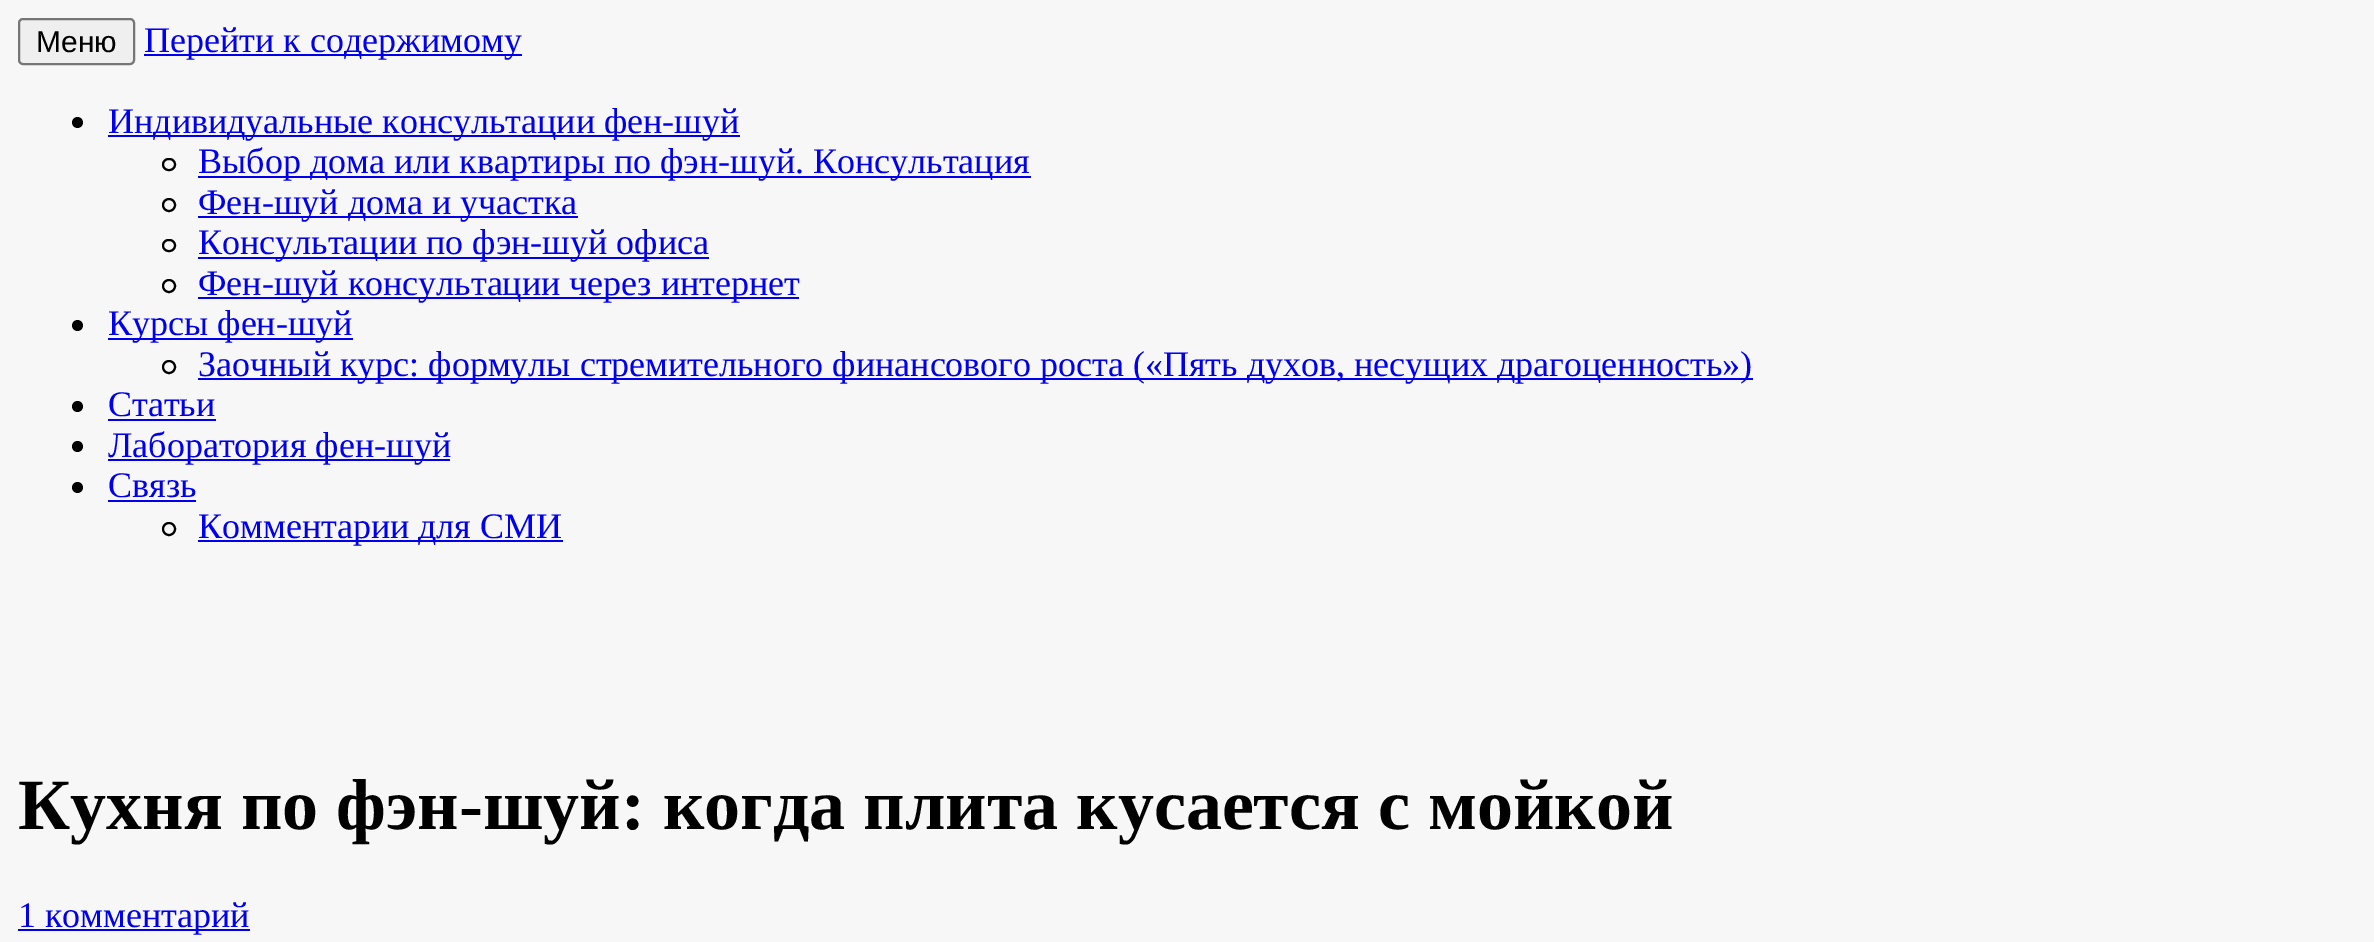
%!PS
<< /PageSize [2374 942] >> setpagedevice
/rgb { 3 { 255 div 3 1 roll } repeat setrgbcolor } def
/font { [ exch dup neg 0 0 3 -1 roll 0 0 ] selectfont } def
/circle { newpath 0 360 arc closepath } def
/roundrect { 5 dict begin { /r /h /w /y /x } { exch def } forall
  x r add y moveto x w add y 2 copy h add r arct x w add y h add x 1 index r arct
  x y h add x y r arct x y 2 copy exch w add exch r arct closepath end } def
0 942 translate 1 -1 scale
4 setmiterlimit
247 247 247 rgb
0 0 2374 942 rectfill
239 239 239 rgb
19 19 115 45 4 roundrect gsave fill grestore
118 118 118 rgb
2 setlinewidth
stroke
0 0 238 rgb
144 54 378 2 rectfill
0 0 0 rgb
77.5 122.5 5.5 circle fill
0 0 238 rgb
108 135 632 2 rectfill
0 0 0 rgb
163 159 12 11 5.5 roundrect stroke
0 0 238 rgb
198 176 833 2 rectfill
0 0 0 rgb
169 205 6 circle stroke
0 0 238 rgb
198 216 380 2 rectfill
0 0 0 rgb
163 240 12 11 5.5 roundrect stroke
0 0 238 rgb
198 257 511 2 rectfill
0 0 0 rgb
169 286 6 circle stroke
0 0 238 rgb
198 297 601 2 rectfill
0 0 0 rgb
77.5 325.5 5.5 circle fill
0 0 238 rgb
108 338 245 2 rectfill
0 0 0 rgb
169 367 6 circle stroke
0 0 238 rgb
198 378 1555 2 rectfill
0 0 0 rgb
77.5 406.5 5.5 circle fill
0 0 238 rgb
108 419 108 2 rectfill
0 0 0 rgb
77.5 446.5 5.5 circle fill
0 0 238 rgb
108 459 342 2 rectfill
0 0 0 rgb
77.5 487.5 5.5 circle fill
0 0 238 rgb
108 500 88 2 rectfill
0 0 0 rgb
169 529 6 circle stroke
0 0 238 rgb
198 540 365 2 rectfill
18 929 232 2 rectfill
/LiberationSans-Regular 30 font
0 0 0 rgb
36 52 moveto (Меню) show
/LiberationSerif-Regular 36 font
0 0 238 rgb
[
  [(Перейти к содержимому) 144 52]
  [(Индивидуальные консультации фен-шуй) 108 133]
  [(Выбор дома или квартиры по фэн-шуй. Консультация) 198 173]
  [(Фен-шуй дома и участка) 198 214]
  [(Консультации по фэн-шуй офиса) 198 254]
  [(Фен-шуй консультации через интернет) 198 295]
  [(Курсы фен-шуй) 108 335]
  [(Заочный курс: формулы стремительного финансового роста \(«Пять духов, несущих драгоценность»\)) 198 376]
  [(Статьи) 108 416]
  [(Лаборатория фен-шуй) 108 457]
  [(Связь) 108 497]
  [(Комментарии для СМИ) 198 538]
] { aload pop moveto show } forall
/LiberationSerif-Bold 72 font
0 0 0 rgb
18 829 moveto (Кухня по фэн-шуй: когда плита кусается с мойкой) show
/LiberationSerif-Regular 36 font
0 0 238 rgb
18 927 moveto (1 комментарий) show
showpage
